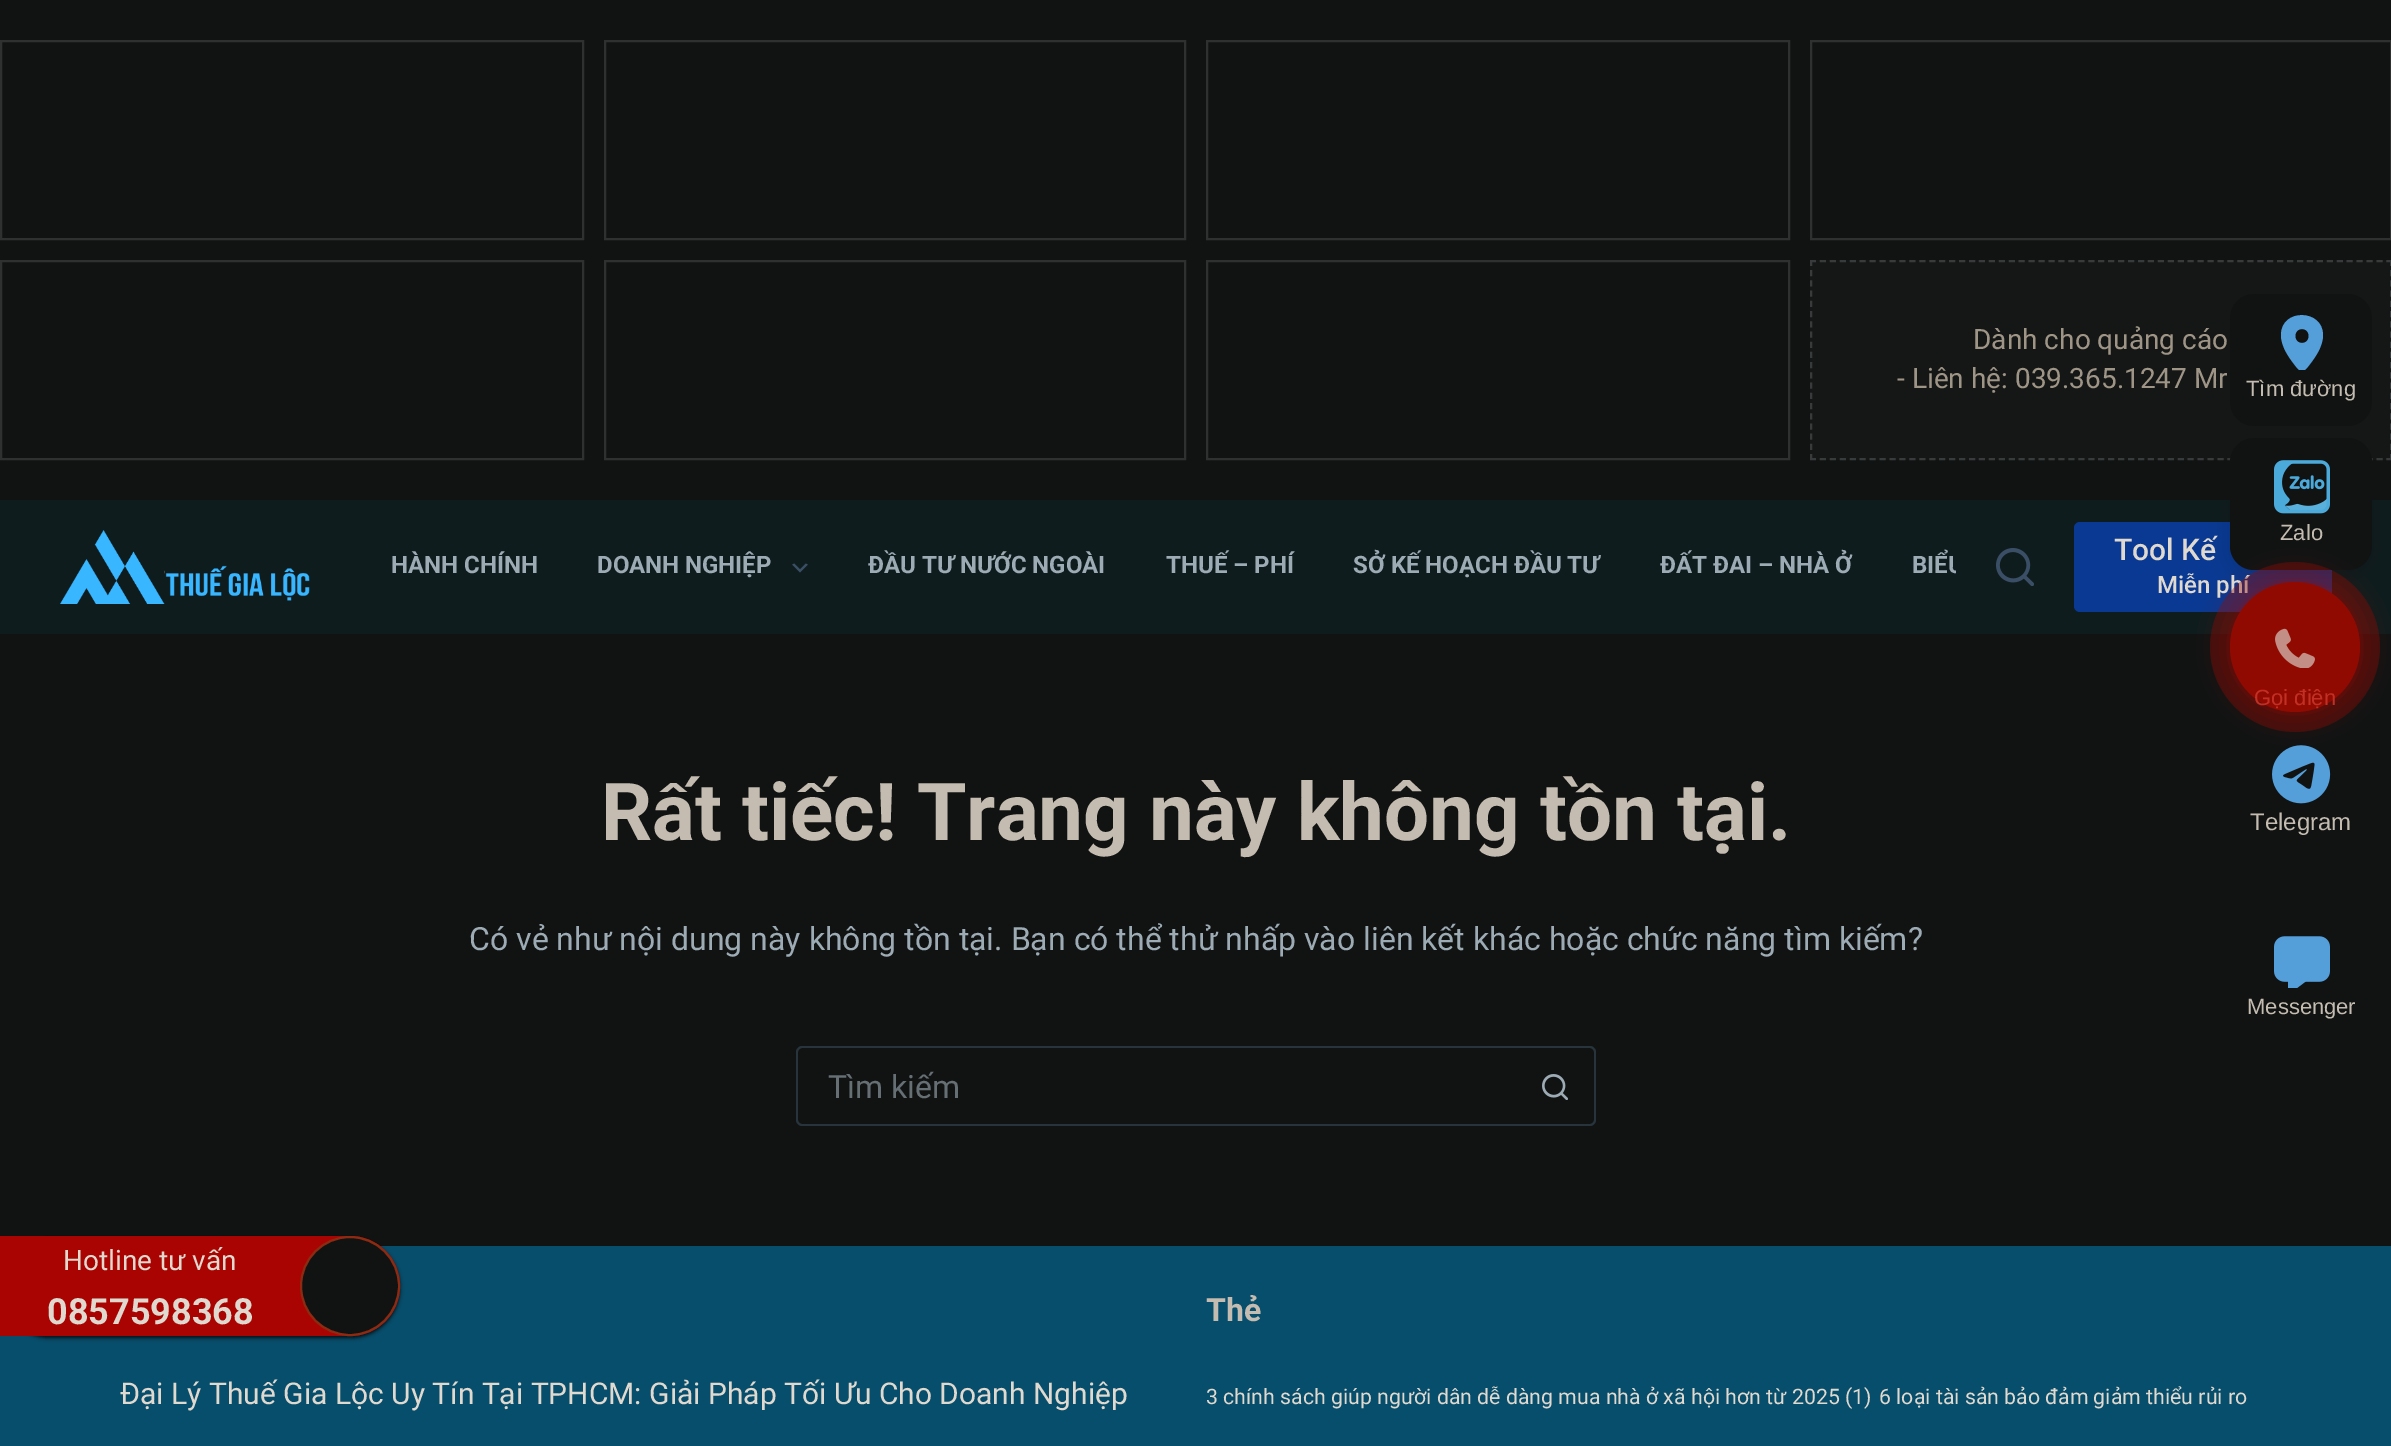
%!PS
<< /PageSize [2391 1446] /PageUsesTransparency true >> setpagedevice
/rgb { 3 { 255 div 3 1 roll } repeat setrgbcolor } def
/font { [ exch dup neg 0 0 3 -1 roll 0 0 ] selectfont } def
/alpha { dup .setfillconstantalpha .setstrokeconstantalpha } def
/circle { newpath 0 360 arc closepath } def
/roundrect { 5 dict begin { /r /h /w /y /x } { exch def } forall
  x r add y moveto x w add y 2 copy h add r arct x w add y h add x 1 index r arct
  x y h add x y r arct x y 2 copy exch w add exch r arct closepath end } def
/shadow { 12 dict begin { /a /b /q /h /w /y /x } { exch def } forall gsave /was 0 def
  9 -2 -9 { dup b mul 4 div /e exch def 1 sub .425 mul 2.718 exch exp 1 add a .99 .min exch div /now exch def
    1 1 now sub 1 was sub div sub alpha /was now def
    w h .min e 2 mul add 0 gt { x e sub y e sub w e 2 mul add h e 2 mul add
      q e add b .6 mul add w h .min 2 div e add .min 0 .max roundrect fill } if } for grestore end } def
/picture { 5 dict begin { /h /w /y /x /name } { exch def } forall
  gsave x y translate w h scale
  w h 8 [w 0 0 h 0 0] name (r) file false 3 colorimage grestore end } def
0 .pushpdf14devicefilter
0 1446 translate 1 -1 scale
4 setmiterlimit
17 19 19 rgb
0 0 2391 1446 rectfill
47 49 49 rgb
2 setlinewidth
1 41 582 198 rectstroke
605 41 580 198 rectstroke
1207 41 582 198 rectstroke
1811 41 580 198 rectstroke
1 261 582 198 rectstroke
605 261 580 198 rectstroke
1207 261 582 198 rectstroke
21 23 22 rgb
1810 260 581 200 rectfill
56 59 59 rgb
[6 3.94] 0 setdash
1810 261 moveto 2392 261 lineto stroke
[6 4.22] 0 setdash
2391 260 moveto 2391 460 lineto stroke
[6 3.94] 0 setdash
1810 459 moveto 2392 459 lineto stroke
[6 4.22] 0 setdash
1811 260 moveto 1811 460 lineto stroke
15 28 30 rgb
0 500 2391 134 rectfill
(img/1.rgb) 60 530 250 74 picture
(img/2.rgb) 792 563 16 10 picture
(img/3.rgb) 1996 548 38 38 picture
9 57 146 rgb
2074 522 258 90 6 roundrect fill
40 52 60 rgb
802 1046 moveto 1516 1046 lineto 1516 1126 lineto 802 1126 lineto 799 1126 796 1123 796 1120 curveto 796 1052 lineto 796 1049 799 1046 802 1046 curveto closepath 802 1048 moveto 1516 1048 lineto 1516 1124 lineto 802 1124 lineto 800 1124 798 1122 798 1120 curveto 798 1052 lineto 798 1050 800 1048 802 1048 curveto closepath eofill
1516 1046 moveto 1590 1046 lineto 1593 1046 1596 1049 1596 1052 curveto 1596 1120 lineto 1596 1123 1593 1126 1590 1126 curveto 1516 1126 lineto closepath 1516 1048 moveto 1590 1048 lineto 1592 1048 1594 1050 1594 1052 curveto 1594 1120 lineto 1594 1122 1592 1124 1590 1124 curveto 1516 1124 lineto closepath eofill
(img/4.rgb) 1542 1074 26 26 picture
7 78 108 rgb
0 1246 2391 200 rectfill
17 19 19 rgb
2230 294 142 132 24 roundrect fill
gsave
2274 314 56 56 rectclip
84 158 217 rgb
2281 335 moveto 2281 308 2323 309 2323 335 curveto 2323 344 2318 353 2313 360 curveto 2302 375 2302 375 2291 360 curveto 2286 353 2281 344 2281 335 curveto closepath 2302 343 moveto 2311 343 2311 329 2302 329 curveto 2293 329 2293 343 2302 343 curveto closepath fill
grestore
0 0 0 rgb
2230 444 142 132 24 10 0.12 shadow
17 19 19 rgb
2230 438 142 132 24 roundrect fill
(img/5.rgb) 2274 460 56 54 picture
(img/7.rgb) 2272 745 59 59 picture
169 4 2 rgb
2230 582 130 130 65 15 0.55 shadow
(img/8.rgb) 2274 936 56 52 picture
0 0 0 rgb
0 1238 400 100 50 2 0.8 shadow
169 4 2 rgb
0 1236 moveto 350 1236 lineto 377.5 1236 400 1258.5 400 1286 curveto 400 1313.5 377.5 1336 350 1336 curveto 0 1336 lineto closepath fill
17 19 19 rgb
350 1286 49 circle gsave fill grestore
140 43 17 rgb
[] 0 setdash
stroke
/Roboto-Regular 28 font
159 149 135 rgb
1973 349 moveto (Dành cho quảng cáo) show
1897 388 moveto (- Liên hệ: 039.365.1247 Mr) show
/Roboto-Bold 24 font
157 171 180 rgb
[
  [(HÀNH CHÍNH) 391 573]
  [(DOANH NGHIỆP) 597 573]
  [(ĐẦU TƯ NƯỚC NGOÀI) 868 573]
  [(THUẾ – PHÍ) 1166 573]
  [(SỞ KẾ HOẠCH ĐẦU TƯ) 1353 573]
  [(ĐẤT ĐAI – NHÀ Ở) 1660 573]
] { aload pop moveto show } forall
gsave
360 500 1596 134 rectclip
1912 573 moveto (BIỂU) show
grestore
/Roboto-Medium 30 font
224 217 207 rgb
2114 560 moveto (Tool Kế) show
/Roboto-Medium 24 font
2157 593 moveto (Miễn phí) show
/Roboto-Bold 80 font
196 188 176 rgb
601 840 moveto (Rất tiếc! Trang này không tồn tại.) show
/Roboto-Regular 32 font
157 171 180 rgb
469 950 moveto (Có vẻ như nội dung này không tồn tại. Bạn có thể thử nhấp vào liên kết khác hoặc chức năng tìm kiếm?) show
102 111 116 rgb
828 1098 moveto (Tìm kiếm) show
/Roboto-Regular 30 font
224 217 207 rgb
120 1404 moveto (Đại Lý Thuế Gia Lộc Uy Tín Tại TPHCM: Giải Pháp Tối Ưu Cho Doanh Nghiệp) show
/Roboto-Bold 32 font
196 188 176 rgb
1206 1321 moveto (Thẻ) show
/Roboto-Regular 21.3 font
224 217 207 rgb
[
  [(3 chính sách giúp người dân dễ dàng mua nhà ở xã hội hơn từ 2025) 1206 1404]
  [(\(1\)) 1845 1404]
  [(6 loại tài sản bảo đảm giảm thiểu rủi ro) 1879 1404]
] { aload pop moveto show } forall
/LiberationSans-Regular 22 font
196 188 176 rgb
2246 396 moveto (Tìm đường) show
2280 540 moveto (Zalo) show
145 10 1 rgb
2295 647 65 circle fill
(img/6.rgb) 2275 628 40 40 picture
222 70 57 rgb
2254 705 moveto (Gọi điện) show
0.36 alpha
145 10 1 rgb
2295 647 85 circle fill
/LiberationSans-Regular 24 font
1 alpha
196 188 176 rgb
2250 830 moveto (Telegram) show
/LiberationSans-Regular 22 font
2247 1014 moveto (Messenger) show
/Roboto-Regular 28 font
224 217 207 rgb
63 1270 moveto (Hotline tư vấn) show
/Roboto-Bold 36 font
47 1324 moveto (0857598368) show
.poppdf14devicefilter showpage
